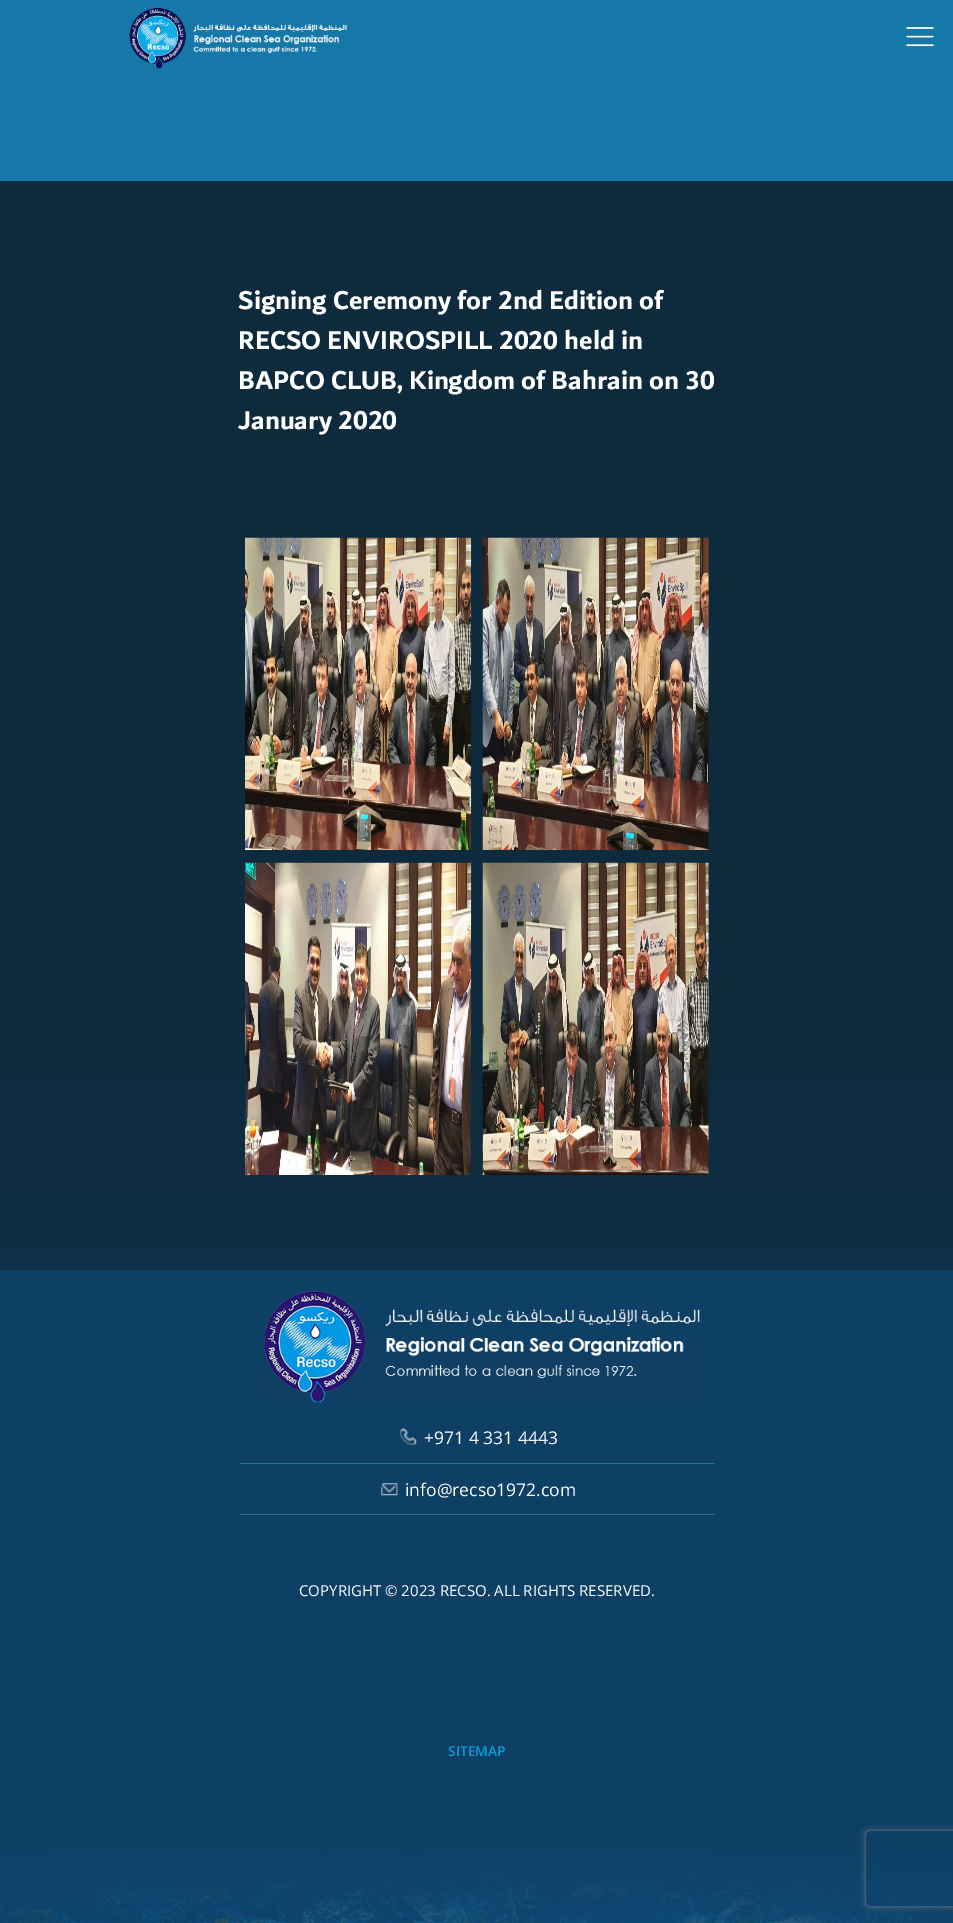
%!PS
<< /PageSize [953 1923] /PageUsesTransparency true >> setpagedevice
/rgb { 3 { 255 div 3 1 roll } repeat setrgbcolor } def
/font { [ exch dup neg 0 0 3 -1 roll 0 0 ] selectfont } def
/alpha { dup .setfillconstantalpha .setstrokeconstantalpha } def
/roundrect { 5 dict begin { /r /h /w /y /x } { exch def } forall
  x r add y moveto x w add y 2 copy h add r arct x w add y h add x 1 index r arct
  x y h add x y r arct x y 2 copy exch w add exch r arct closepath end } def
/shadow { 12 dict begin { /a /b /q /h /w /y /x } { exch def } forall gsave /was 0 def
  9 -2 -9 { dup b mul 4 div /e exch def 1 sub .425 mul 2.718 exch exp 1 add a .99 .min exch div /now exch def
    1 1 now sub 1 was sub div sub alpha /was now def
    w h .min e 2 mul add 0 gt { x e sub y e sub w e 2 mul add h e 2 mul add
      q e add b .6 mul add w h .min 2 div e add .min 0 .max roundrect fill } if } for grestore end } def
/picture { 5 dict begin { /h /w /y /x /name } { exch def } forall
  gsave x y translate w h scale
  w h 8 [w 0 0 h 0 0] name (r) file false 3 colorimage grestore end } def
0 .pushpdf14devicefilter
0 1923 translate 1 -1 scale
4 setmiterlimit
14 64 101 rgb
0 0 953 1923 rectfill
22 120 169 rgb
0 0 953 181 rectfill
(img/1.rgb) 129 7 218 63 picture
(img/2.rgb) 906 27 28 20 picture
14 43 62 rgb
0 181 953 1089 rectfill
(img/3.rgb) 245 537 227 313 picture
(img/4.rgb) 482 537 227 313 picture
15 62 101 rgb
-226 1334 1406 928 0 113 1 shadow
(img/5.rgb) 245 862 227 313 picture
(img/6.rgb) 482 862 227 313 picture
13 40 57 rgb
219 256 1 185 rectfill
(img/7.rgb) 263 1291 437 112 picture
37 113 146 rgb
240 1463 475 1 rectfill
(img/8.rgb) 399 1428 18 17 picture
240 1514 475 1 rectfill
(img/9.rgb) 381 1483 17 13 picture
(img/10.rgb) 0 1849 953 74 picture
gsave
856 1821 moveto 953 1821 lineto 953 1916 lineto 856 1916 lineto closepath 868.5 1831 moveto 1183.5 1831 lineto 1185 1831 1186 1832 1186 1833.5 curveto 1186 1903.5 lineto 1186 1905 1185 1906 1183.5 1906 curveto 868.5 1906 lineto 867 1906 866 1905 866 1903.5 curveto 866 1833.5 lineto 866 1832 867 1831 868.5 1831 curveto closepath eoclip newpath
128 128 128 rgb
866 1831 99 75 2.5 3 1 shadow
grestore
/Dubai-Bold 27.5 font
255 255 255 rgb
[
  [(Signing Ceremony for 2nd Edition of) 238 309]
  [(RECSO ENVIROSPILL 2020 held in) 238 349]
  [(BAPCO CLUB, Kingdom of Bahrain on 30) 238 389]
  [(January 2020) 238 429]
] { aload pop moveto show } forall
/OpenSans-Regular 17.5 font
424 1444 moveto (+971 4 331 4443) show
405 1496 moveto (info@recso1972.com) show
/OpenSans-Regular 15 font
299 1596 moveto (COPYRIGHT © 2023 RECSO. ALL RIGHTS RESERVED.) show
/OpenSans-SemiBold 13.75 font
7 158 215 rgb
448 1756 moveto (SITEMAP) show
.poppdf14devicefilter showpage
